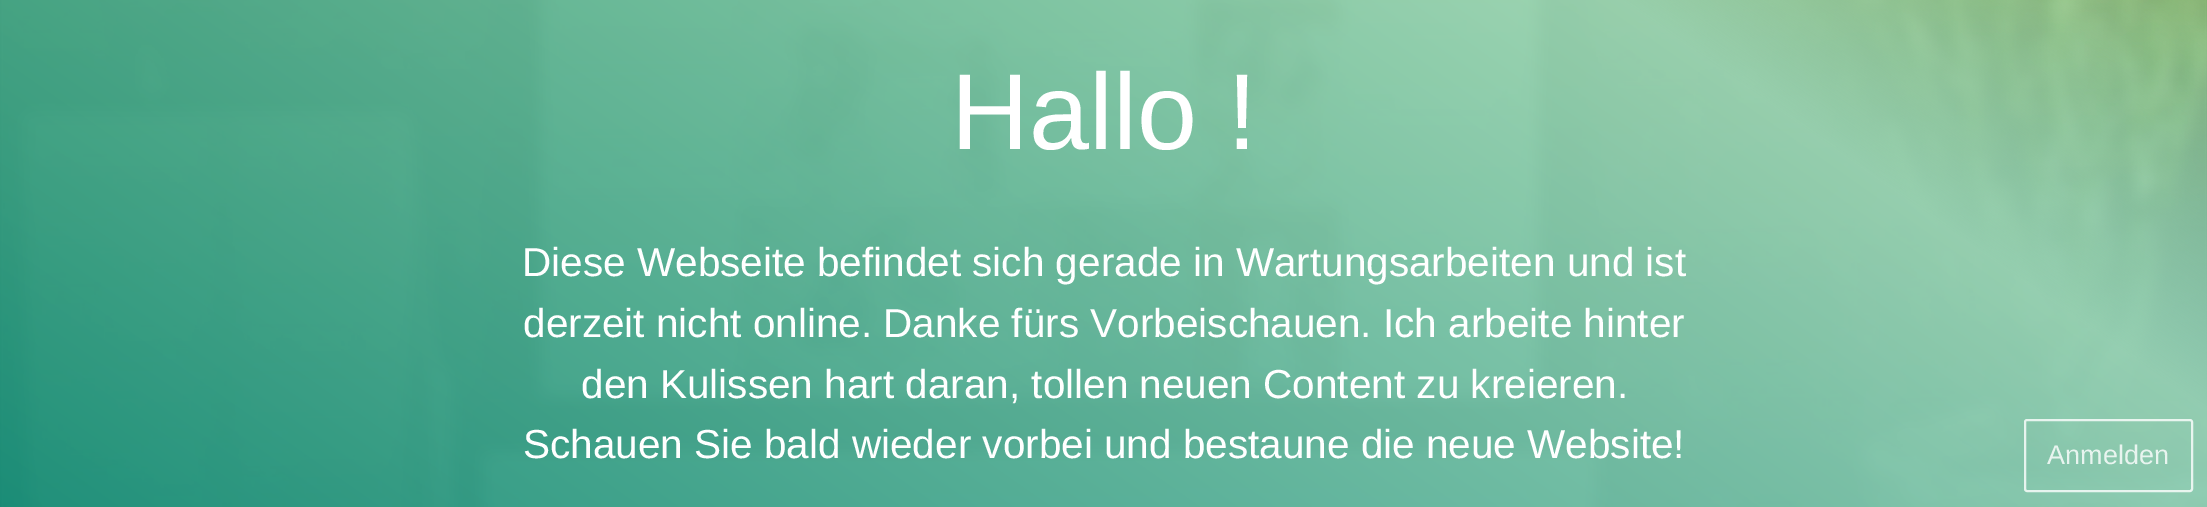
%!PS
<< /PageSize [2207 507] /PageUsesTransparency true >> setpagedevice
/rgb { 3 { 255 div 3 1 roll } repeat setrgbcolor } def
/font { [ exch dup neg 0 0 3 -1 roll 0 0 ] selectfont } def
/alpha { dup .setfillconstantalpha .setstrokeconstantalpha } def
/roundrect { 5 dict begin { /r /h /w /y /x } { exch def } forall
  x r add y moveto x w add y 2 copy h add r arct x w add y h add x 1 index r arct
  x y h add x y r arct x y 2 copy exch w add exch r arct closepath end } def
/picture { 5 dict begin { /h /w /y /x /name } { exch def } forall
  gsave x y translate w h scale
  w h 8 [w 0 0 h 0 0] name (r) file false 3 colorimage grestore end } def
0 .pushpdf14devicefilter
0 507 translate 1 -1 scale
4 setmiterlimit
255 255 255 rgb
0 0 2207 507 rectfill
(img/1.rgb) 0 0 2207 507 picture
0.8 alpha
2 setlinewidth
2025 420 167 71 2 roundrect stroke
/LiberationSans-Regular 108 font
1 alpha
951 149 moveto (Hallo !) show
/LiberationSans-Regular 40.5 font
[
  [(Diese Webseite befindet sich gerade in Wartungsarbeiten und ist) 522 276]
  [(derzeit nicht online. Danke fürs Vorbeischauen. Ich arbeite hinter) 523 337]
  [(den Kulissen hart daran, tollen neuen Content zu kreieren.) 581 398]
  [(Schauen Sie bald wieder vorbei und bestaune die neue Website!) 523 458]
] { aload pop moveto show } forall
/LiberationSans-Regular 27 font
232 244 239 rgb
2047 464 moveto (Anmelden) show
.poppdf14devicefilter showpage
